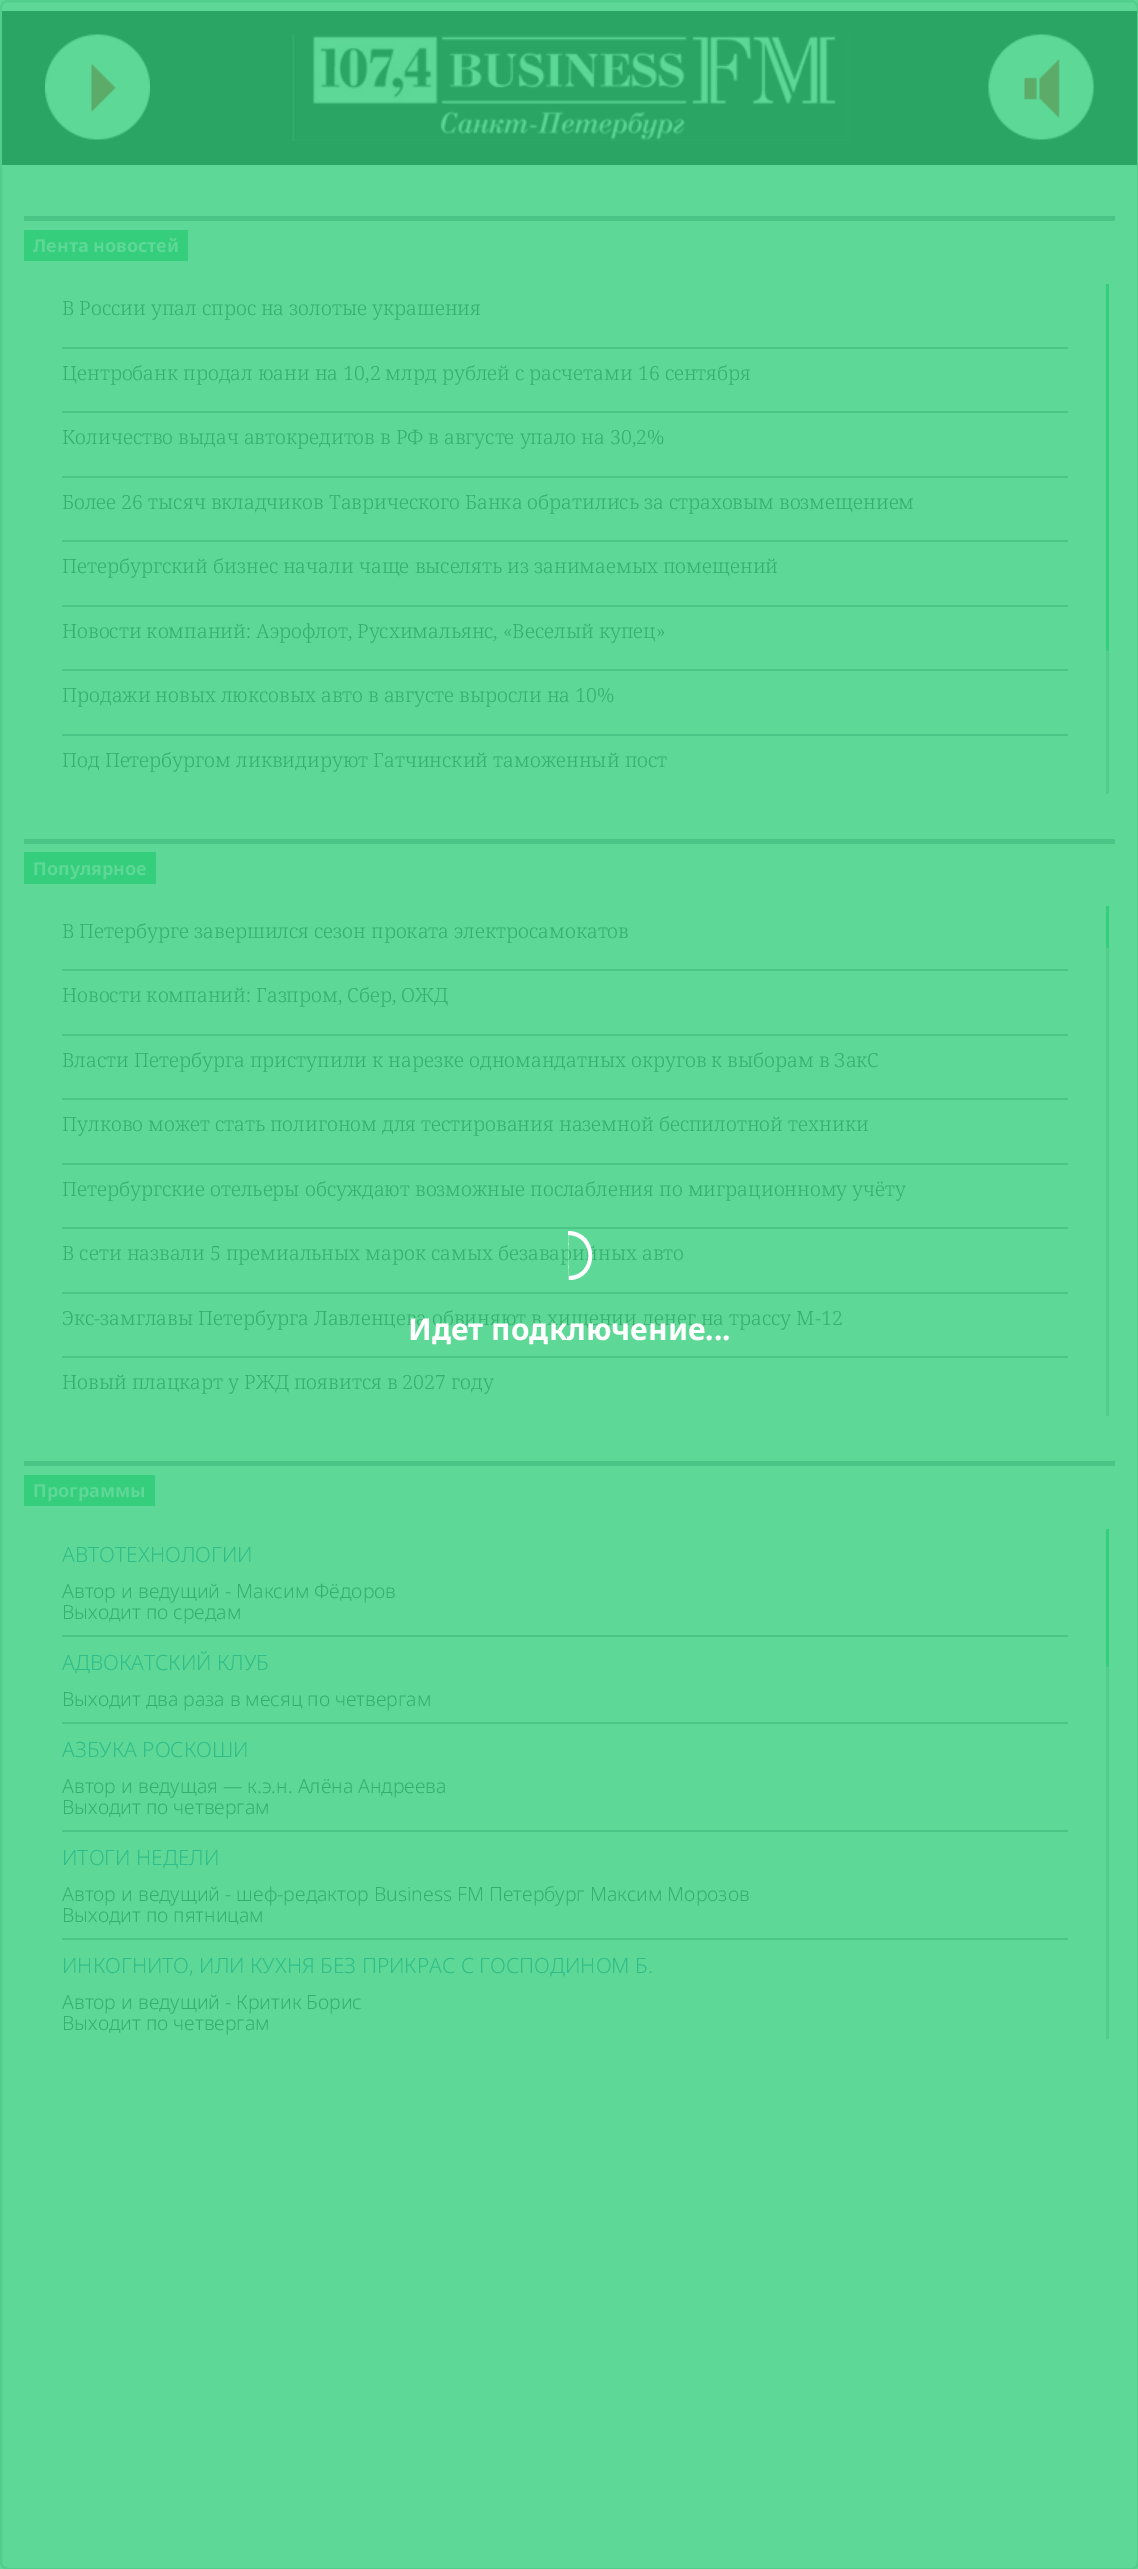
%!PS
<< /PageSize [1138 2569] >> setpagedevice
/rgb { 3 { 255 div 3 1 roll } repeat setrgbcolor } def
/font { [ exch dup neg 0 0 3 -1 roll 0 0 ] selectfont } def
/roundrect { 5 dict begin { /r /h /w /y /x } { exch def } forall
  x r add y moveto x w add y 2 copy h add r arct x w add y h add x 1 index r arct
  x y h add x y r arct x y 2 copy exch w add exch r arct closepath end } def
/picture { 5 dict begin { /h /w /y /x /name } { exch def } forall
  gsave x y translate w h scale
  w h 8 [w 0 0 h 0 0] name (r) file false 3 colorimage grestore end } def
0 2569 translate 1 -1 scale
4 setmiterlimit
93 216 150 rgb
0 0 1138 2569 rectfill
82 206 140 rgb
2 setlinewidth
1 1 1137 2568 7 roundrect stroke
42 165 99 rgb
2 11 1135 154 rectfill
(img/1.rgb) 45 34 105 106 picture
(img/2.rgb) 292 34 557 107 picture
(img/3.rgb) 988 34 106 106 picture
[
  [24 216 1091 5 74 197 133]
  [24 230 164 31 52 206 124]
  [62 347 1006 2 74 197 133]
  [62 411 1006 2 74 197 133]
  [62 476 1006 2 74 197 133]
  [62 540 1006 2 74 197 133]
  [62 605 1006 2 74 197 133]
  [62 669 1006 2 74 197 133]
  [62 734 1006 2 74 197 133]
  [1106 651 3 143 82 206 140]
  [1106 284 3 367 52 206 124]
  [24 839 1091 5 74 197 133]
  [24 852 132 32 52 206 124]
  [62 969 1006 2 74 197 133]
  [62 1034 1006 2 74 197 133]
  [62 1098 1006 2 74 197 133]
  [62 1163 1006 2 74 197 133]
  [62 1227 1006 2 74 197 133]
  [62 1292 1006 2 74 197 133]
  [62 1356 1006 2 74 197 133]
  [1106 948 3 468 82 206 140]
  [1106 906 3 42 52 206 124]
  [24 1461 1091 5 74 197 133]
  [24 1475 131 31 52 206 124]
  [62 1635 1006 2 74 197 133]
  [62 1722 1006 2 74 197 133]
  [62 1830 1006 2 74 197 133]
  [62 1938 1006 2 74 197 133]
  [1106 1667 3 372 82 206 140]
  [1106 1529 3 138 52 206 124]
] { aload pop rgb rectfill } forall
/NotoSans-Bold 18 font
93 216 150 rgb
33 252 moveto (Лента новостей) show
/NotoSerif-Light 19.5 font
52 175 109 rgb
[
  [(В России упал спрос на золотые украшения) 62 315]
  [(Центробанк продал юани на 10,2 млрд рублей с расчетами 16 сентября) 62 380]
  [(Количество выдач автокредитов в РФ в августе упало на 30,2%) 62 444]
  [(Более 26 тысяч вкладчиков Таврического Банка обратились за страховым возмещением) 62 509]
  [(Петербургский бизнес начали чаще выселять из занимаемых помещений) 62 573]
  [(Новости компаний: Аэрофлот, Русхимальянс, «Веселый купец») 62 638]
  [(Продажи новых люксовых авто в августе выросли на 10%) 62 702]
  [(Под Петербургом ликвидируют Гатчинский таможенный пост) 62 767]
] { aload pop moveto show } forall
/NotoSans-Bold 18 font
93 216 150 rgb
33 875 moveto (Популярное) show
/NotoSerif-Light 19.5 font
52 175 109 rgb
[
  [(В Петербурге завершился сезон проката электросамокатов) 62 938]
  [(Новости компаний: Газпром, Сбер, ОЖД) 62 1002]
  [(Власти Петербурга приступили к нарезке одномандатных округов к выборам в ЗакС) 62 1067]
  [(Пулково может стать полигоном для тестирования наземной беспилотной техники) 62 1131]
  [(Петербургские отельеры обсуждают возможные послабления по миграционному учёту) 62 1196]
  [(В сети назвали 5 премиальных марок самых безаварийных авто) 62 1260]
  [(Экс-замглавы Петербурга Лавленцева обвиняют в хищении денег на трассу М-12) 62 1325]
  [(Новый плацкарт у РЖД появится в 2027 году) 62 1389]
] { aload pop moveto show } forall
/NotoSans-Bold 18 font
93 216 150 rgb
33 1497 moveto (Программы) show
/NotoSans-Light 21 font
48 189 137 rgb
62 1562 moveto (АВТОТЕХНОЛОГИИ) show
/NotoSans-Light 19.5 font
52 175 109 rgb
62 1598 moveto (Автор и ведущий - Максим Фёдоров) show
62 1619 moveto (Выходит по средам) show
/NotoSans-Light 21 font
48 189 137 rgb
62 1670 moveto (АДВОКАТСКИЙ КЛУБ) show
/NotoSans-Light 19.5 font
52 175 109 rgb
62 1706 moveto (Выходит два раза в месяц по четвергам) show
/NotoSans-Light 21 font
48 189 137 rgb
62 1757 moveto (АЗБУКА РОСКОШИ) show
/NotoSans-Light 19.5 font
52 175 109 rgb
62 1793 moveto (Автор и ведущая — к.э.н. Алёна Андреева) show
62 1814 moveto (Выходит по четвергам) show
/NotoSans-Light 21 font
48 189 137 rgb
62 1865 moveto (ИТОГИ НЕДЕЛИ) show
/NotoSans-Light 19.5 font
52 175 109 rgb
62 1901 moveto (Автор и ведущий - шеф-редактор Business FM Петербург Максим Морозов) show
62 1922 moveto (Выходит по пятницам) show
/NotoSans-Light 21 font
48 189 137 rgb
62 1973 moveto (ИНКОГНИТО, ИЛИ КУХНЯ БЕЗ ПРИКРАС С ГОСПОДИНОМ Б.) show
/NotoSans-Light 19.5 font
52 175 109 rgb
62 2009 moveto (Автор и ведущий - Критик Борис) show
62 2030 moveto (Выходит по четвергам) show
255 255 255 rgb
569 1280 moveto 600 1280 600 1231 568 1231 curveto 568 1235 moveto 595 1235 595 1276 569 1276 curveto fill
/NotoSans-Bold 30 font
408 1340 moveto (Идет подключение...) show
showpage
